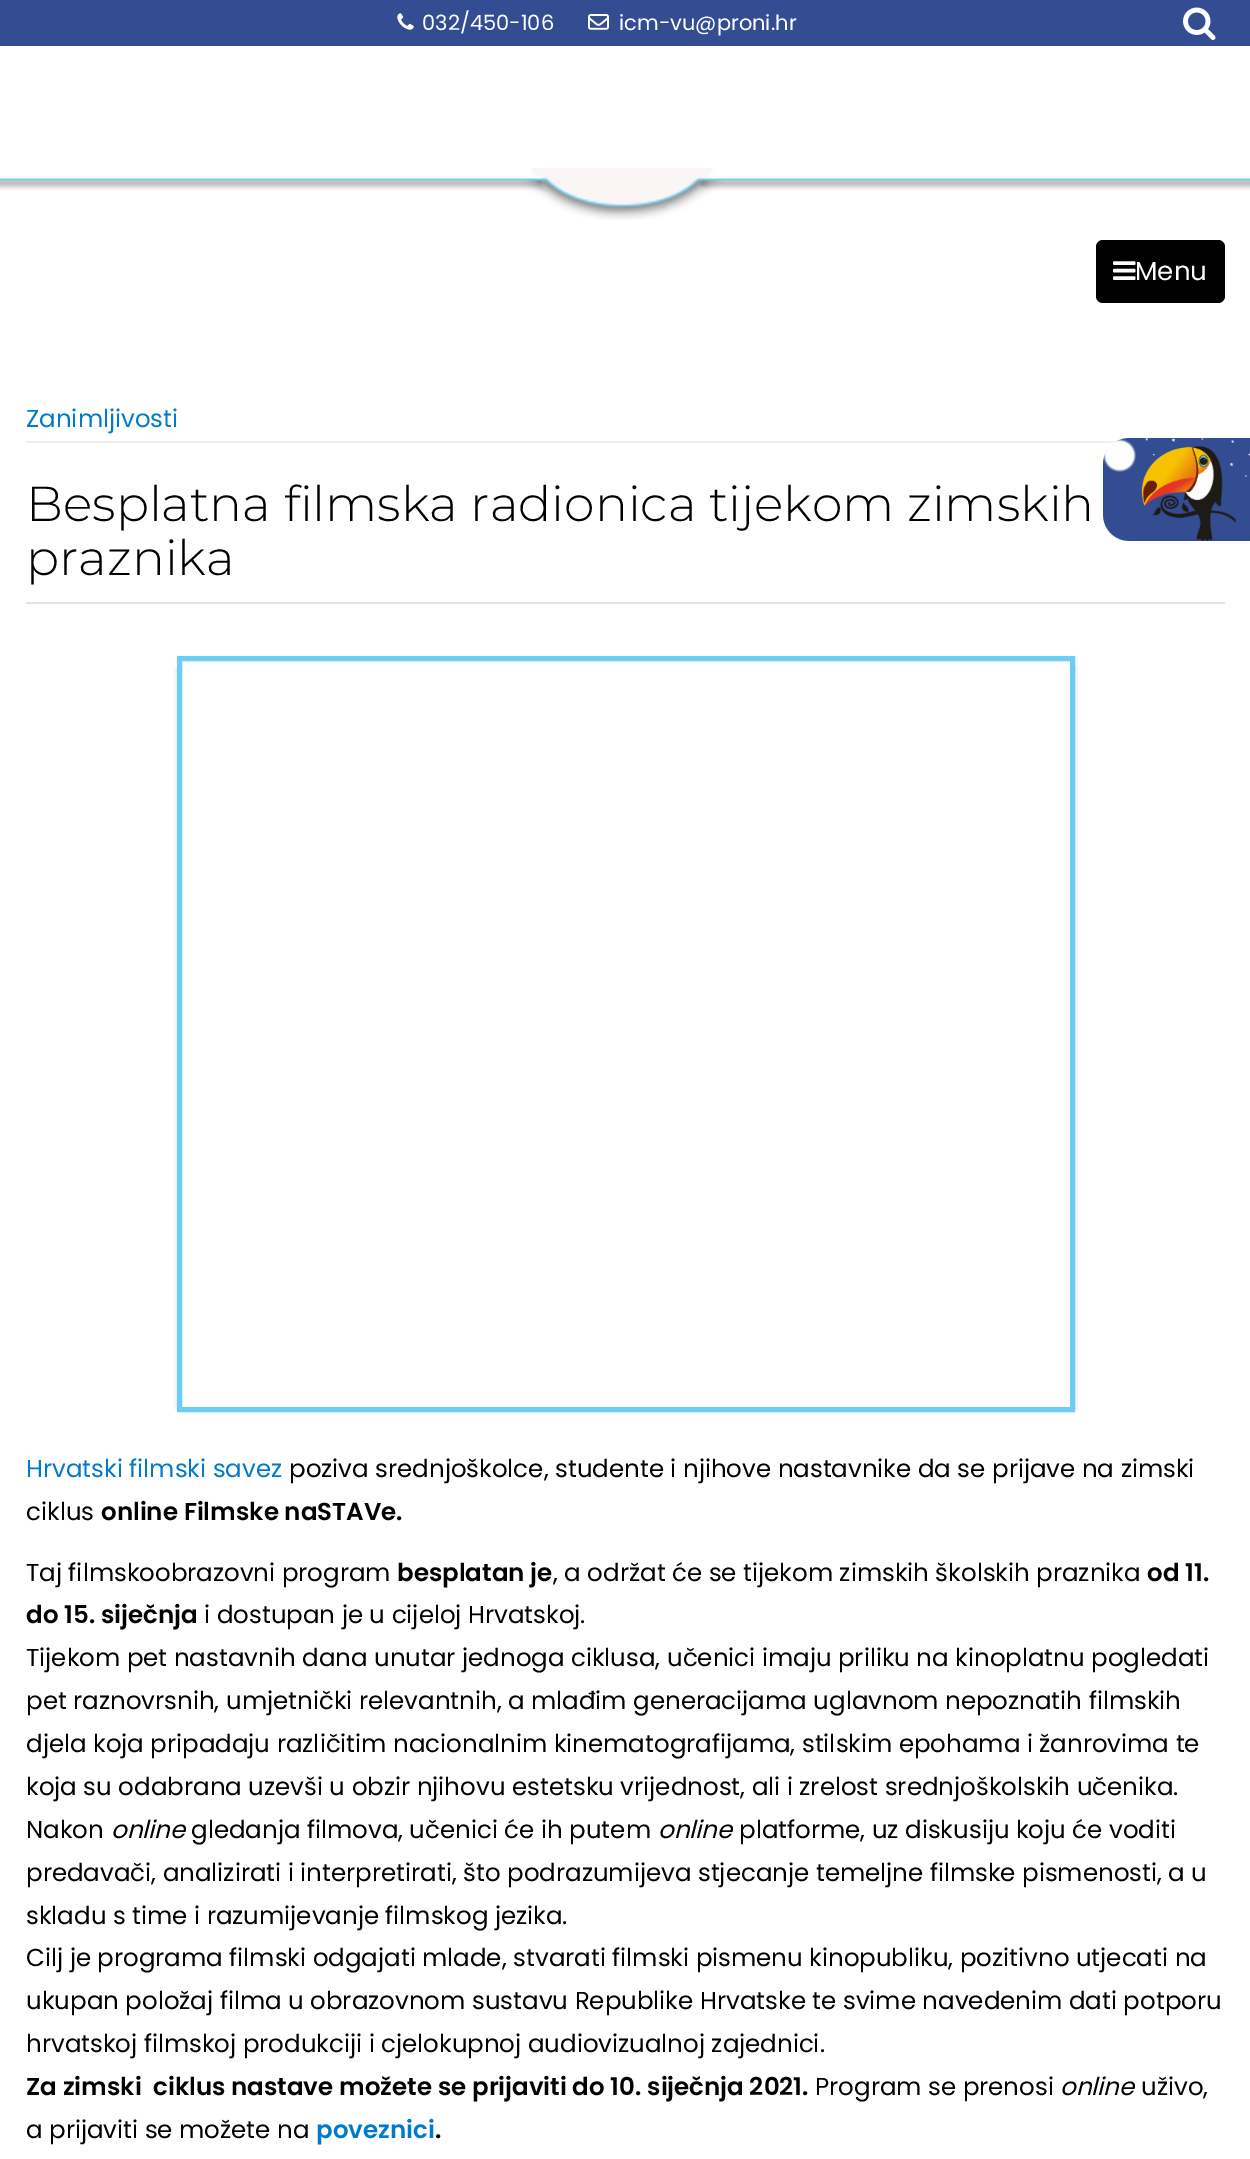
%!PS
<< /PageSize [1250 2159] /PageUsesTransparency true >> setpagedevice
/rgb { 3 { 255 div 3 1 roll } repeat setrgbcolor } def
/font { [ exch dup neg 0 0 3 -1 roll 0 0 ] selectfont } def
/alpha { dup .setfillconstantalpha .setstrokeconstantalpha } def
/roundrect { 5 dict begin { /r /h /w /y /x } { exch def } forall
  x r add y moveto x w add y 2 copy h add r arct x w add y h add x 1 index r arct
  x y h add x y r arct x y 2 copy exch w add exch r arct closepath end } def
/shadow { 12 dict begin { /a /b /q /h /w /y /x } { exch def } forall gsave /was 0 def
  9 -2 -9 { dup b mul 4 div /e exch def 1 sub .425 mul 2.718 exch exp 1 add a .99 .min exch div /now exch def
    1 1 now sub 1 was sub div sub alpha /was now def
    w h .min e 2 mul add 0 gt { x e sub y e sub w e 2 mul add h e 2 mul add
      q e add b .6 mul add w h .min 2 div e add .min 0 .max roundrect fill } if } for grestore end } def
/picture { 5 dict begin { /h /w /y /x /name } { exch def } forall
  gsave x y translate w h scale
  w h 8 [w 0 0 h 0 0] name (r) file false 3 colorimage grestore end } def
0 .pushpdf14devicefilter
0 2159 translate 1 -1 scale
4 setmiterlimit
255 255 255 rgb
0 0 1250 2159 rectfill
52 77 146 rgb
0 0 1250 46 rectfill
(img/1.rgb) 397 13 17 17 picture
(img/2.rgb) 588 14 21 16 picture
(img/3.rgb) 1183 7 33 33 picture
(img/4.rgb) 0 168 1250 52 picture
0 0 0 rgb
1096 240 129 63 7 roundrect fill
(img/5.rgb) 1113 261 23 19 picture
229 229 229 rgb
26 602 1199 2 rectfill
238 238 238 rgb
26 441 1091 2 rectfill
gsave
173 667 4 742 rectclip
0 0 0 rgb
177 667 884 742 0 3.5 0.13 shadow
grestore
gsave
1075 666 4 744 rectclip
0 0 0 rgb
191 667 884 742 0 3.5 0.13 shadow
grestore
109 206 245 rgb
5 setlinewidth
179.5 658.5 893 751 rectstroke
52 77 146 rgb
1129 438 moveto 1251 438 lineto 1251 541 lineto 1129 541 lineto 1114.5 541 1103 529.5 1103 515 curveto 1103 464 lineto 1103 449.5 1114.5 438 1129 438 curveto closepath fill
(img/6.rgb) 1103 438 147 103 picture
/Poppins-Regular 21 font
255 255 255 rgb
422 30 moveto (032/450-106) show
619 30 moveto (icm-vu@proni.hr) show
/Poppins-Regular 26 font
1135 280 moveto (Menu) show
/Poppins-Regular 24.5 font
0 122 204 rgb
26 427 moveto (Zanimljivosti) show
/Montserrat-Light 49 font
0 0 0 rgb
26 521 moveto (Besplatna filmska radionica tijekom zimskih) show
26 575 moveto (praznika) show
/Poppins-Regular 24.5 font
0 122 204 rgb
26 1477 moveto (Hrvatski filmski savez) show
0 0 0 rgb
289 1477 moveto (poziva srednjoškolce, studente i njihove nastavnike da se prijave na zimski) show
26 1520 moveto (ciklus) show
/Poppins-SemiBold 24.5 font
101 1520 moveto (online Filmske naSTAVe.) show
/Poppins-Regular 24.5 font
26 1581 moveto (Taj filmskoobrazovni program) show
/Poppins-SemiBold 24.5 font
397 1581 moveto (besplatan je) show
/Poppins-Regular 24.5 font
553 1581 moveto (, a održat će se tijekom zimskih školskih praznika) show
/Poppins-SemiBold 24.5 font
1147 1581 moveto (od 11.) show
26 1623 moveto (do 15. siječnja) show
/Poppins-Regular 24.5 font
[
  [(i dostupan je u cijeloj Hrvatskoj.) 204 1623]
  [(Tijekom pet nastavnih dana unutar jednoga ciklusa, učenici imaju priliku na kinoplatnu pogledati) 26 1666]
  [(pet raznovrsnih, umjetnički relevantnih, a mlađim generacijama uglavnom nepoznatih filmskih) 26 1709]
  [(djela koja pripadaju različitim nacionalnim kinematografijama, stilskim epohama i žanrovima te) 26 1752]
  [(koja su odabrana uzevši u obzir njihovu estetsku vrijednost, ali i zrelost srednjoškolskih učenika.) 26 1795]
  [(Nakon) 26 1838]
] { aload pop moveto show } forall
/Poppins-Italic 24.5 font
111 1838 moveto (online) show
/Poppins-Regular 24.5 font
191 1838 moveto (gledanja filmova, učenici će ih putem) show
/Poppins-Italic 24.5 font
658 1838 moveto (online) show
/Poppins-Regular 24.5 font
[
  [(platforme, uz diskusiju koju će voditi) 739 1838]
  [(predavači, analizirati i interpretirati, što podrazumijeva stjecanje temeljne filmske pismenosti, a u) 26 1881]
  [(skladu s time i razumijevanje filmskog jezika.) 26 1924]
  [(Cilj je programa filmski odgajati mlade, stvarati filmski pismenu kinopubliku, pozitivno utjecati na) 26 1966]
  [(ukupan položaj filma u obrazovnom sustavu Republike Hrvatske te svime navedenim dati potporu) 26 2009]
  [(hrvatskoj filmskoj produkciji i cjelokupnoj audiovizualnoj zajednici.) 26 2052]
] { aload pop moveto show } forall
/Poppins-SemiBold 24.5 font
26 2095 moveto (Za zimski  ciklus nastave možete se prijaviti do 10. siječnja 2021.) show
/Poppins-Regular 24.5 font
815 2095 moveto (Program se prenosi) show
/Poppins-Italic 24.5 font
1060 2095 moveto (online) show
/Poppins-Regular 24.5 font
1141 2095 moveto (uživo,) show
26 2138 moveto (a prijaviti se možete na) show
/Poppins-SemiBold 24.5 font
0 122 204 rgb
316 2138 moveto (poveznici) show
0 0 0 rgb
435 2138 moveto (.) show
.poppdf14devicefilter showpage
